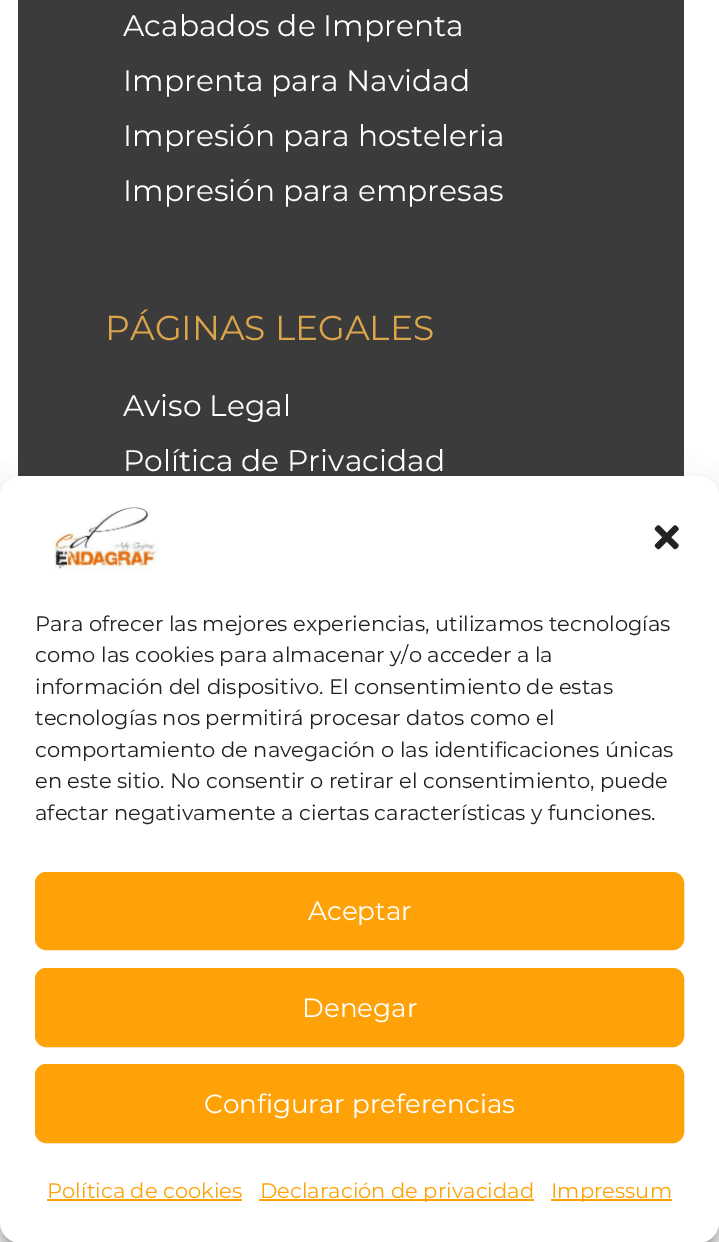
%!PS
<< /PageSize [719 1242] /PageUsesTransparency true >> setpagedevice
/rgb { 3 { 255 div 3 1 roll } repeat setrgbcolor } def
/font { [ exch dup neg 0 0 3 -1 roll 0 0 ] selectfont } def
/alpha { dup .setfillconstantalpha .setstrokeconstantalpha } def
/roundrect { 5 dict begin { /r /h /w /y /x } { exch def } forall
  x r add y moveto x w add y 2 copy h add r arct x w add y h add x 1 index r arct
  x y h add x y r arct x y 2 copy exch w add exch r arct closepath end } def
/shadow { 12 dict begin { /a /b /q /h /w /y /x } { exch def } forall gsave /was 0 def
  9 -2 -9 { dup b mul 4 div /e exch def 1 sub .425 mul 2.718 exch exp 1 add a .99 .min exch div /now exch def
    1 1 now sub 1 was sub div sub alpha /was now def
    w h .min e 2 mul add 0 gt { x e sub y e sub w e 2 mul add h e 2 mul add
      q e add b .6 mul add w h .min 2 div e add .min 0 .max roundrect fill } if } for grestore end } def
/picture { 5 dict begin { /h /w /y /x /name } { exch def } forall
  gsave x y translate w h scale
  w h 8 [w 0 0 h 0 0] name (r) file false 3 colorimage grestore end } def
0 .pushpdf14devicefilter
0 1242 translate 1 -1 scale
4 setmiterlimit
255 255 255 rgb
0 0 719 1242 rectfill
59 59 59 rgb
18 0 666 477 rectfill
0 0 0 rgb
0 487 719 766 21 5 0.23 shadow
0 494 719 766 21 17.5 0.19 shadow
255 255 255 rgb
0 476 719 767 21 roundrect fill
(img/1.rgb) 51 507 108 66 picture
(img/2.rgb) 654 525 25 25 picture
255 162 7 rgb
36 873 647 76 10 roundrect gsave fill grestore
2 setlinewidth
stroke
36 969 647 77 10 roundrect gsave fill grestore
stroke
36 1065 647 77 10 roundrect gsave fill grestore
stroke
[
  [47 1199 195 2 255 162 7]
  [259 1199 275 2 255 162 7]
  [551 1199 121 2 255 162 7]
] { aload pop rgb rectfill } forall
/Montserrat-Regular 29.75 font
255 255 255 rgb
[
  [(Acabados de Imprenta) 123 36]
  [(Imprenta para Navidad) 123 91]
  [(Impresión para hosteleria) 123 146]
  [(Impresión para empresas) 123 201]
] { aload pop moveto show } forall
/Montserrat-Regular 34.5 font
220 165 74 rgb
105 340 moveto (PÁGINAS LEGALES) show
/Montserrat-Regular 29.75 font
255 255 255 rgb
123 416 moveto (Aviso Legal) show
123 471 moveto (Política de Privacidad) show
/Montserrat-Regular 21 font
34 34 34 rgb
[
  [(Para ofrecer las mejores experiencias, utilizamos tecnologías) 35 631]
  [(como las cookies para almacenar y/o acceder a la) 35 662]
  [(información del dispositivo. El consentimiento de estas) 35 694]
  [(tecnologías nos permitirá procesar datos como el) 35 725]
  [(comportamiento de navegación o las identificaciones únicas) 35 757]
  [(en este sitio. No consentir o retirar el consentimiento, puede) 35 788]
  [(afectar negativamente a ciertas características y funciones.) 35 820]
] { aload pop moveto show } forall
/Montserrat-Regular 26.25 font
255 255 255 rgb
[
  [(Aceptar) 308 920]
  [(Denegar) 302 1017]
  [(Configurar preferencias) 204 1113]
] { aload pop moveto show } forall
/Montserrat-Regular 21 font
255 162 7 rgb
[
  [(Política de cookies) 47 1198]
  [(Declaración de privacidad) 260 1198]
  [(Impressum) 551 1198]
] { aload pop moveto show } forall
.poppdf14devicefilter showpage
